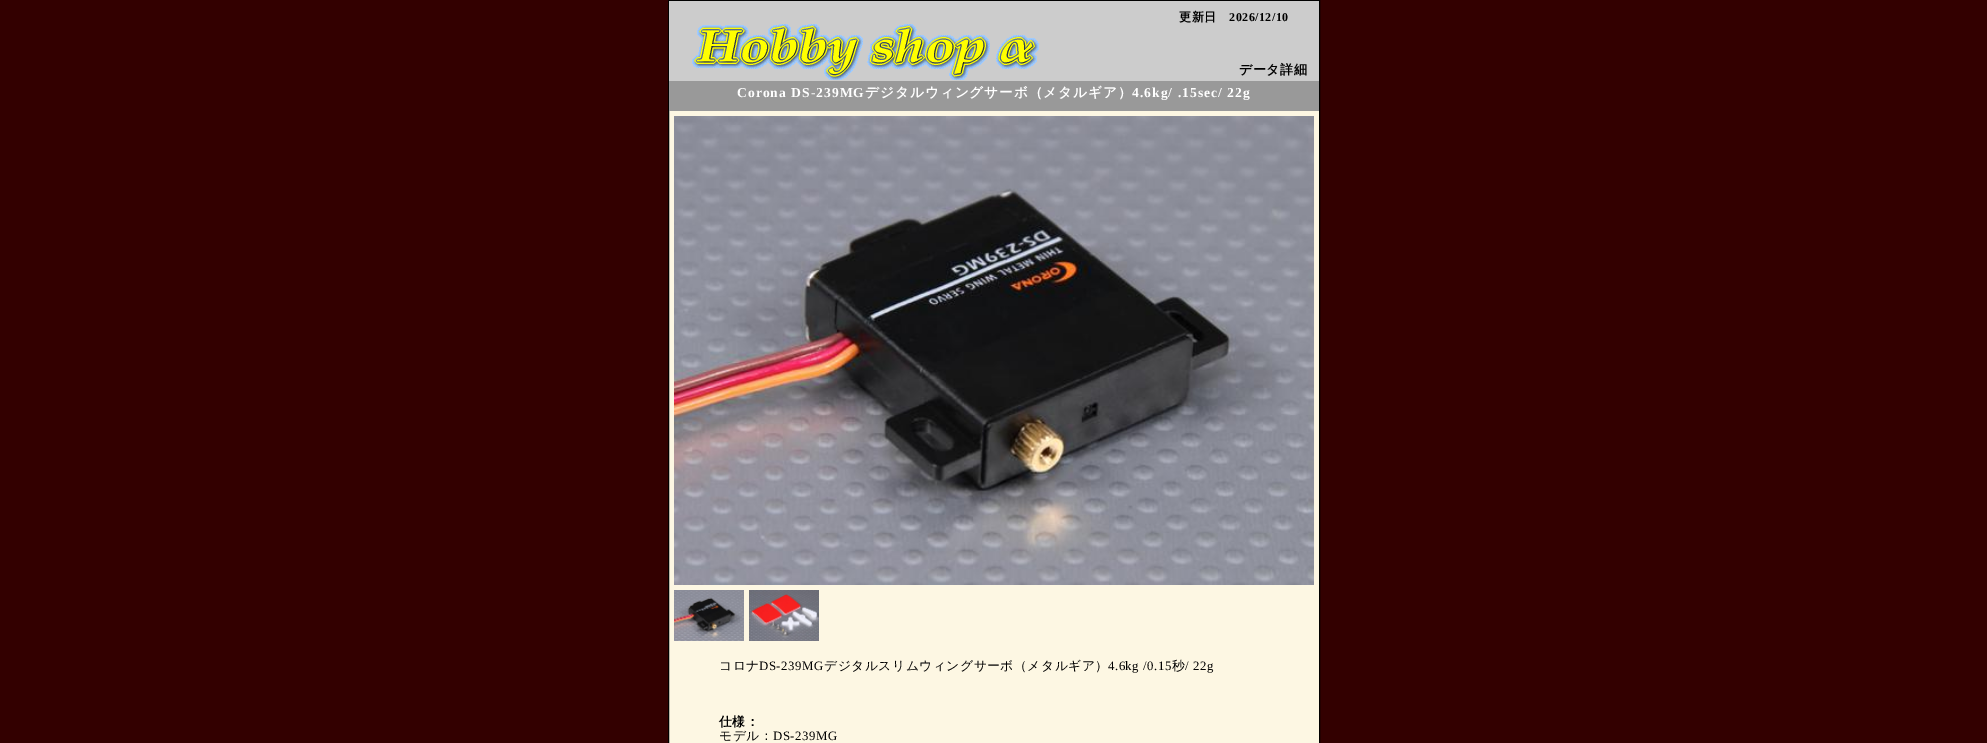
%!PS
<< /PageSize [1987 743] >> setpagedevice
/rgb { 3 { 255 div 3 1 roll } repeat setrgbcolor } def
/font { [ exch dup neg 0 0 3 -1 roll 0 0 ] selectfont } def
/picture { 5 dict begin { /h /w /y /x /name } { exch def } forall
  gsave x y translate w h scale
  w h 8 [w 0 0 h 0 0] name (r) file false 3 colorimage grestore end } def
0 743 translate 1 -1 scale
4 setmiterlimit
51 0 0 rgb
0 0 1987 743 rectfill
253 247 227 rgb
669 111 650 632 rectfill
0 0 0 rgb
668.5 0.5 651 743 rectstroke
204 204 204 rgb
669 1 650 80 rectfill
(img/1.rgb) 692 24 347 56 picture
153 153 153 rgb
669 81 650 30 rectfill
(img/2.rgb) 674 116 640 469 picture
(img/3.rgb) 674 590 70 51 picture
(img/4.rgb) 749 590 70 51 picture
/WenQuanYiZenHei-Bold 12 font
0 0 0 rgb
1179 21 moveto 0.5 0 (更新日) ashow
/LiberationSerif-Bold 12 font
1229 21 moveto 0.5 0 (2026/12/10) ashow
/WenQuanYiZenHei-Bold 13 font
1239 74 moveto 0.5 0 (データ詳細) ashow
/LiberationSerif-Bold 13.6 font
255 255 255 rgb
737 97 moveto 1 0 (Corona DS-239MG) ashow
/WenQuanYiZenHei-Bold 13.6 font
865 97 moveto 1 0 (デジタルウィングサーボ（メタルギア）) ashow
/LiberationSerif-Bold 13.6 font
1132 97 moveto 1 0 (4.6kg/ .15sec/ 22g) ashow
/WenQuanYiZenHei-Medium 12.8 font
0 0 0 rgb
719 670 moveto 0.5 0 (コロナ) ashow
/LiberationSerif-Regular 12.8 font
759 670 moveto 0.5 0 (DS-239MG) ashow
/WenQuanYiZenHei-Medium 12.8 font
824 670 moveto 0.5 0 (デジタルスリムウィングサーボ（メタルギア）) ashow
/LiberationSerif-Regular 12.8 font
1108 670 moveto 0.5 0 (4.6kg /0.15) ashow
/WenQuanYiZenHei-Medium 12.8 font
1172 670 moveto 0.5 0 (秒) ashow
/LiberationSerif-Regular 12.8 font
1185 670 moveto 0.5 0 (/ 22g) ashow
/WenQuanYiZenHei-Bold 12.8 font
719 726 moveto 0.5 0 (仕様：) ashow
/WenQuanYiZenHei-Medium 12.8 font
719 740 moveto 0.5 0 (モデル：) ashow
/LiberationSerif-Regular 12.8 font
773 740 moveto 0.5 0 (DS-239MG) ashow
showpage
